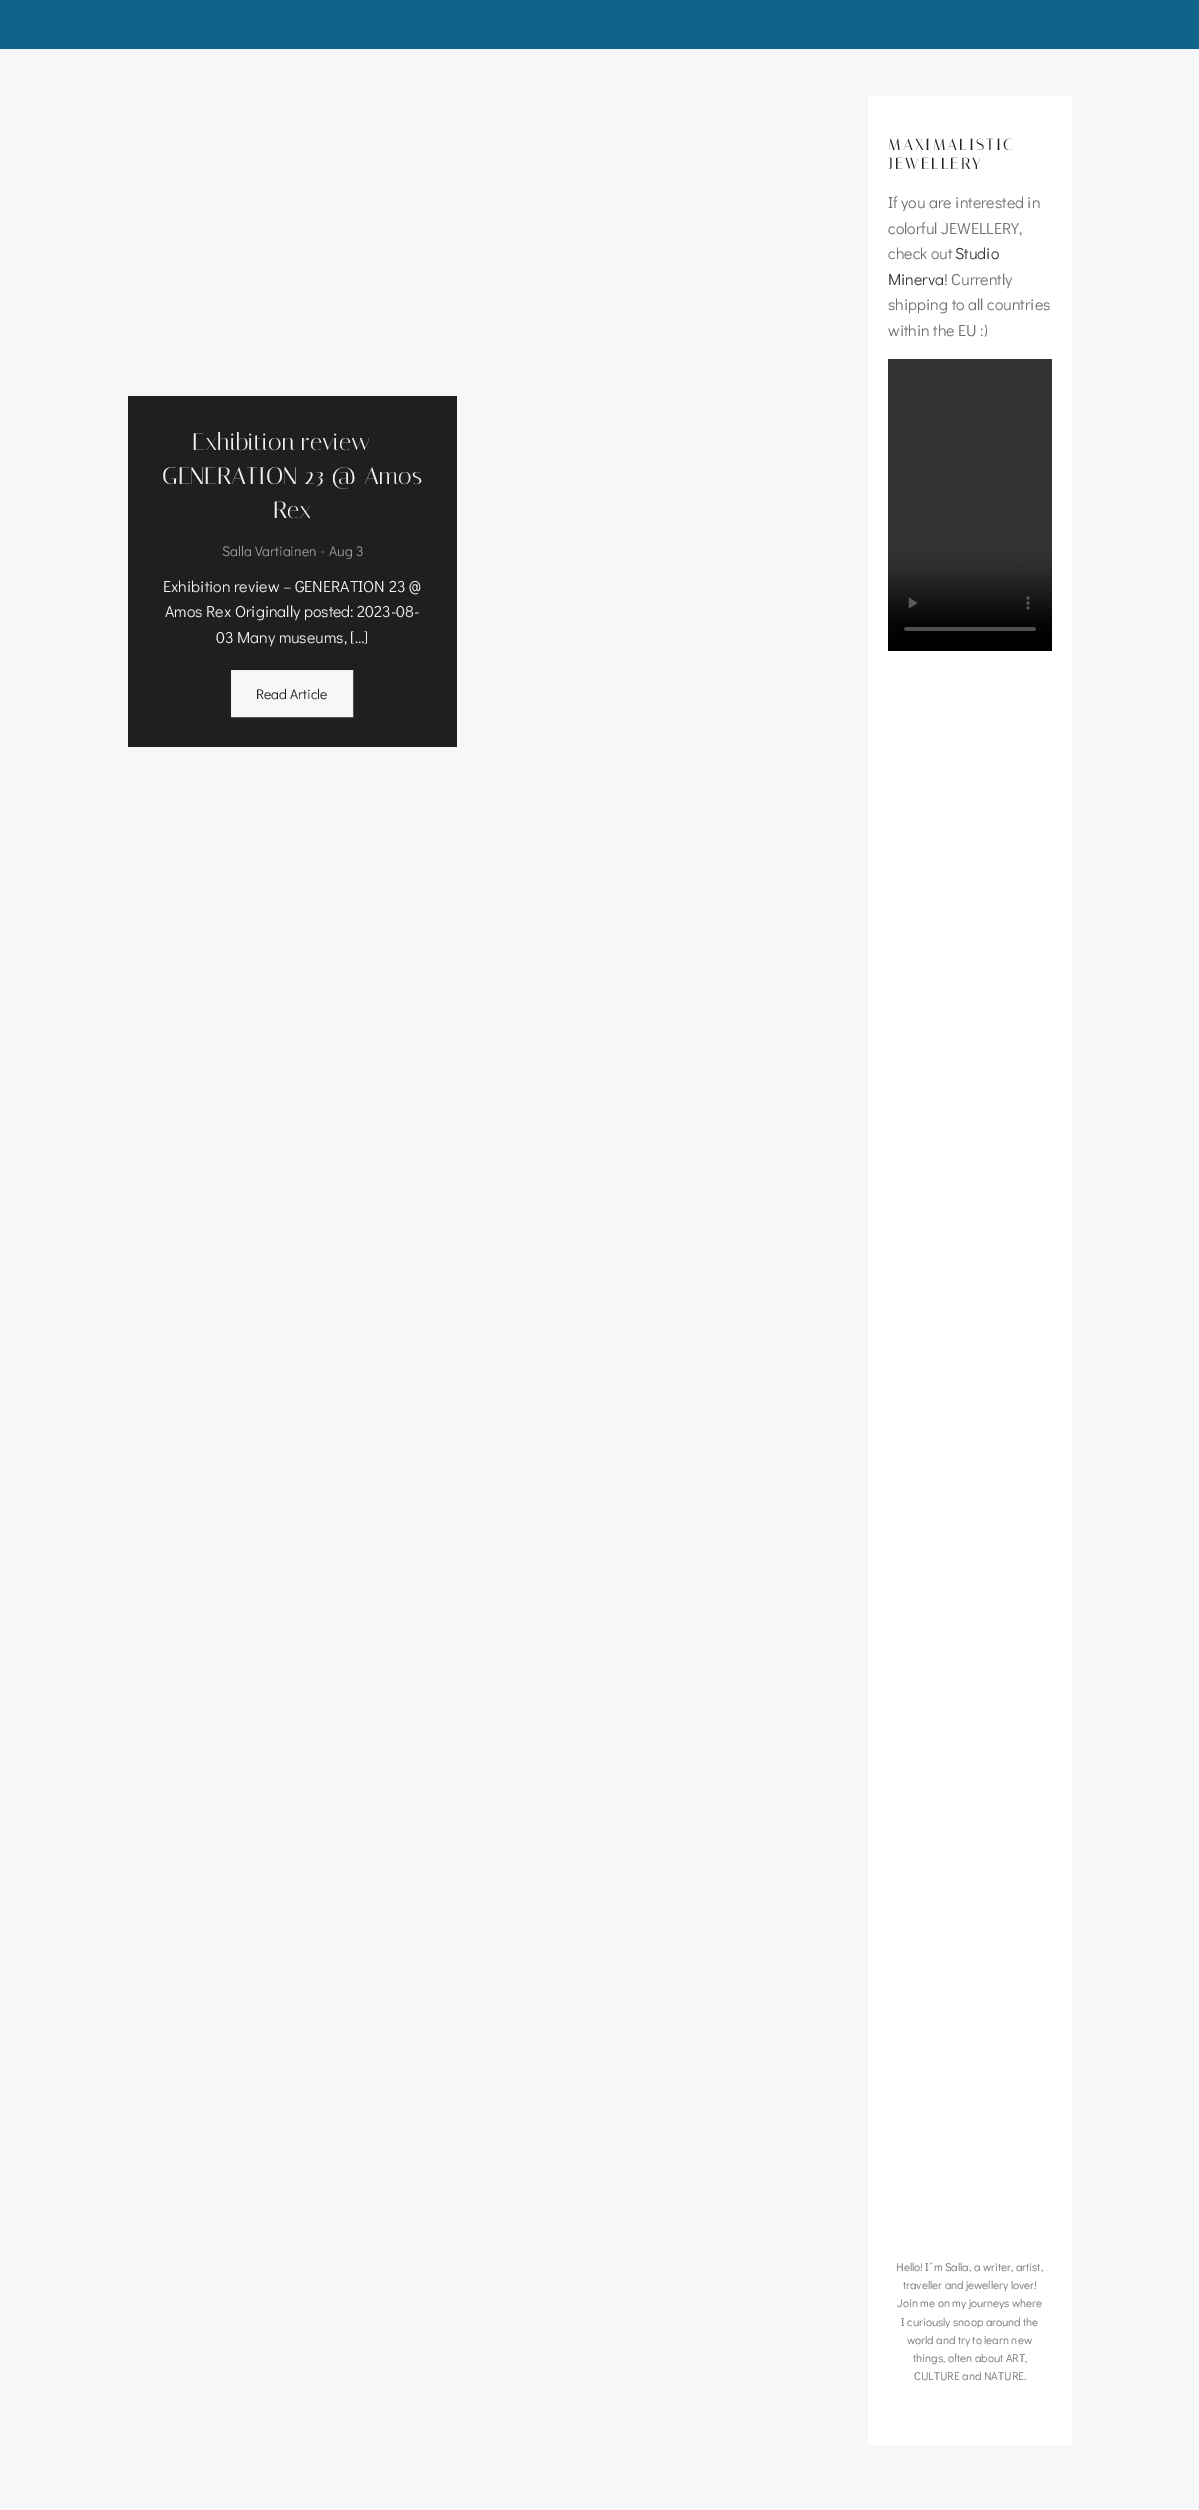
%!PS
<< /PageSize [1199 2510] >> setpagedevice
/rgb { 3 { 255 div 3 1 roll } repeat setrgbcolor } def
/font { [ exch dup neg 0 0 3 -1 roll 0 0 ] selectfont } def
/picture { 5 dict begin { /h /w /y /x /name } { exch def } forall
  gsave x y translate w h scale
  w h 8 [w 0 0 h 0 0] name (r) file false 3 colorimage grestore end } def
0 2510 translate 1 -1 scale
4 setmiterlimit
245 247 248 rgb
0 0 1199 2510 rectfill
16 99 140 rgb
0 0 1199 49 rectfill
31 31 32 rgb
128 396 329 351 rectfill
245 247 248 rgb
231.5 670.5 moveto 352.5 670.5 lineto 352.5 716.5 lineto 231.5 716.5 lineto closepath gsave fill grestore
238 241 245 rgb
stroke
255 255 255 rgb
868 96 204 2349 rectfill
(img/1.rgb) 888 359 164 292 picture
/Italiana-Regular 24 font
238 241 245 rgb
[
  [(Exhibition review –) 192 450]
  [(GENERATION 23 @ Amos) 162 484]
  [(Rex) 273 518]
] { aload pop moveto show } forall
/DidactGothic-Regular 14 font
155 157 160 rgb
222 556 moveto (Salla Vartiainen) show
/DidactGothic-Regular 16 font
113 113 117 rgb
320 556 moveto (-) show
/DidactGothic-Regular 14 font
155 157 160 rgb
329 556 moveto (Aug 3) show
/DidactGothic-Regular 16 font
238 241 245 rgb
[
  [(Exhibition review – GENERATION 23 @) 163 592]
  [(Amos Rex Originally posted: 2023-08-) 165 617]
  [(03 Many museums, […]) 216 643]
] { aload pop moveto show } forall
/DidactGothic-Regular 14 font
31 31 32 rgb
256 699 moveto (Read Article) show
/Italiana-Regular 16 font
888 150 moveto 2 0 (MAXIMALISTIC) ashow
888 169 moveto 2 0 (JEWELLERY) ashow
/DidactGothic-Regular 16 font
113 113 117 rgb
[
  [(If you are interested in) 888 208]
  [(colorful JEWELLERY,) 888 234]
  [(check out) 888 259]
] { aload pop moveto show } forall
55 55 57 rgb
955 259 moveto (Studio) show
888 285 moveto (Minerva) show
113 113 117 rgb
[
  [(! Currently) 944 285]
  [(shipping to all countries) 888 310]
  [(within the EU :\)) 888 336]
] { aload pop moveto show } forall
/DidactGothic-Regular 11.4 font
[
  [(Hello! I´m Salla, a writer, artist,) 896 2271]
  [(traveller and jewellery lover!) 903 2289]
  [(Join me on my journeys where) 897 2307]
  [(I curiously snoop around the) 901 2326]
  [(world and try to learn new) 907 2344]
  [(things, often about ART,) 913 2362]
  [(CULTURE and NATURE.) 914 2380]
] { aload pop moveto show } forall
showpage
